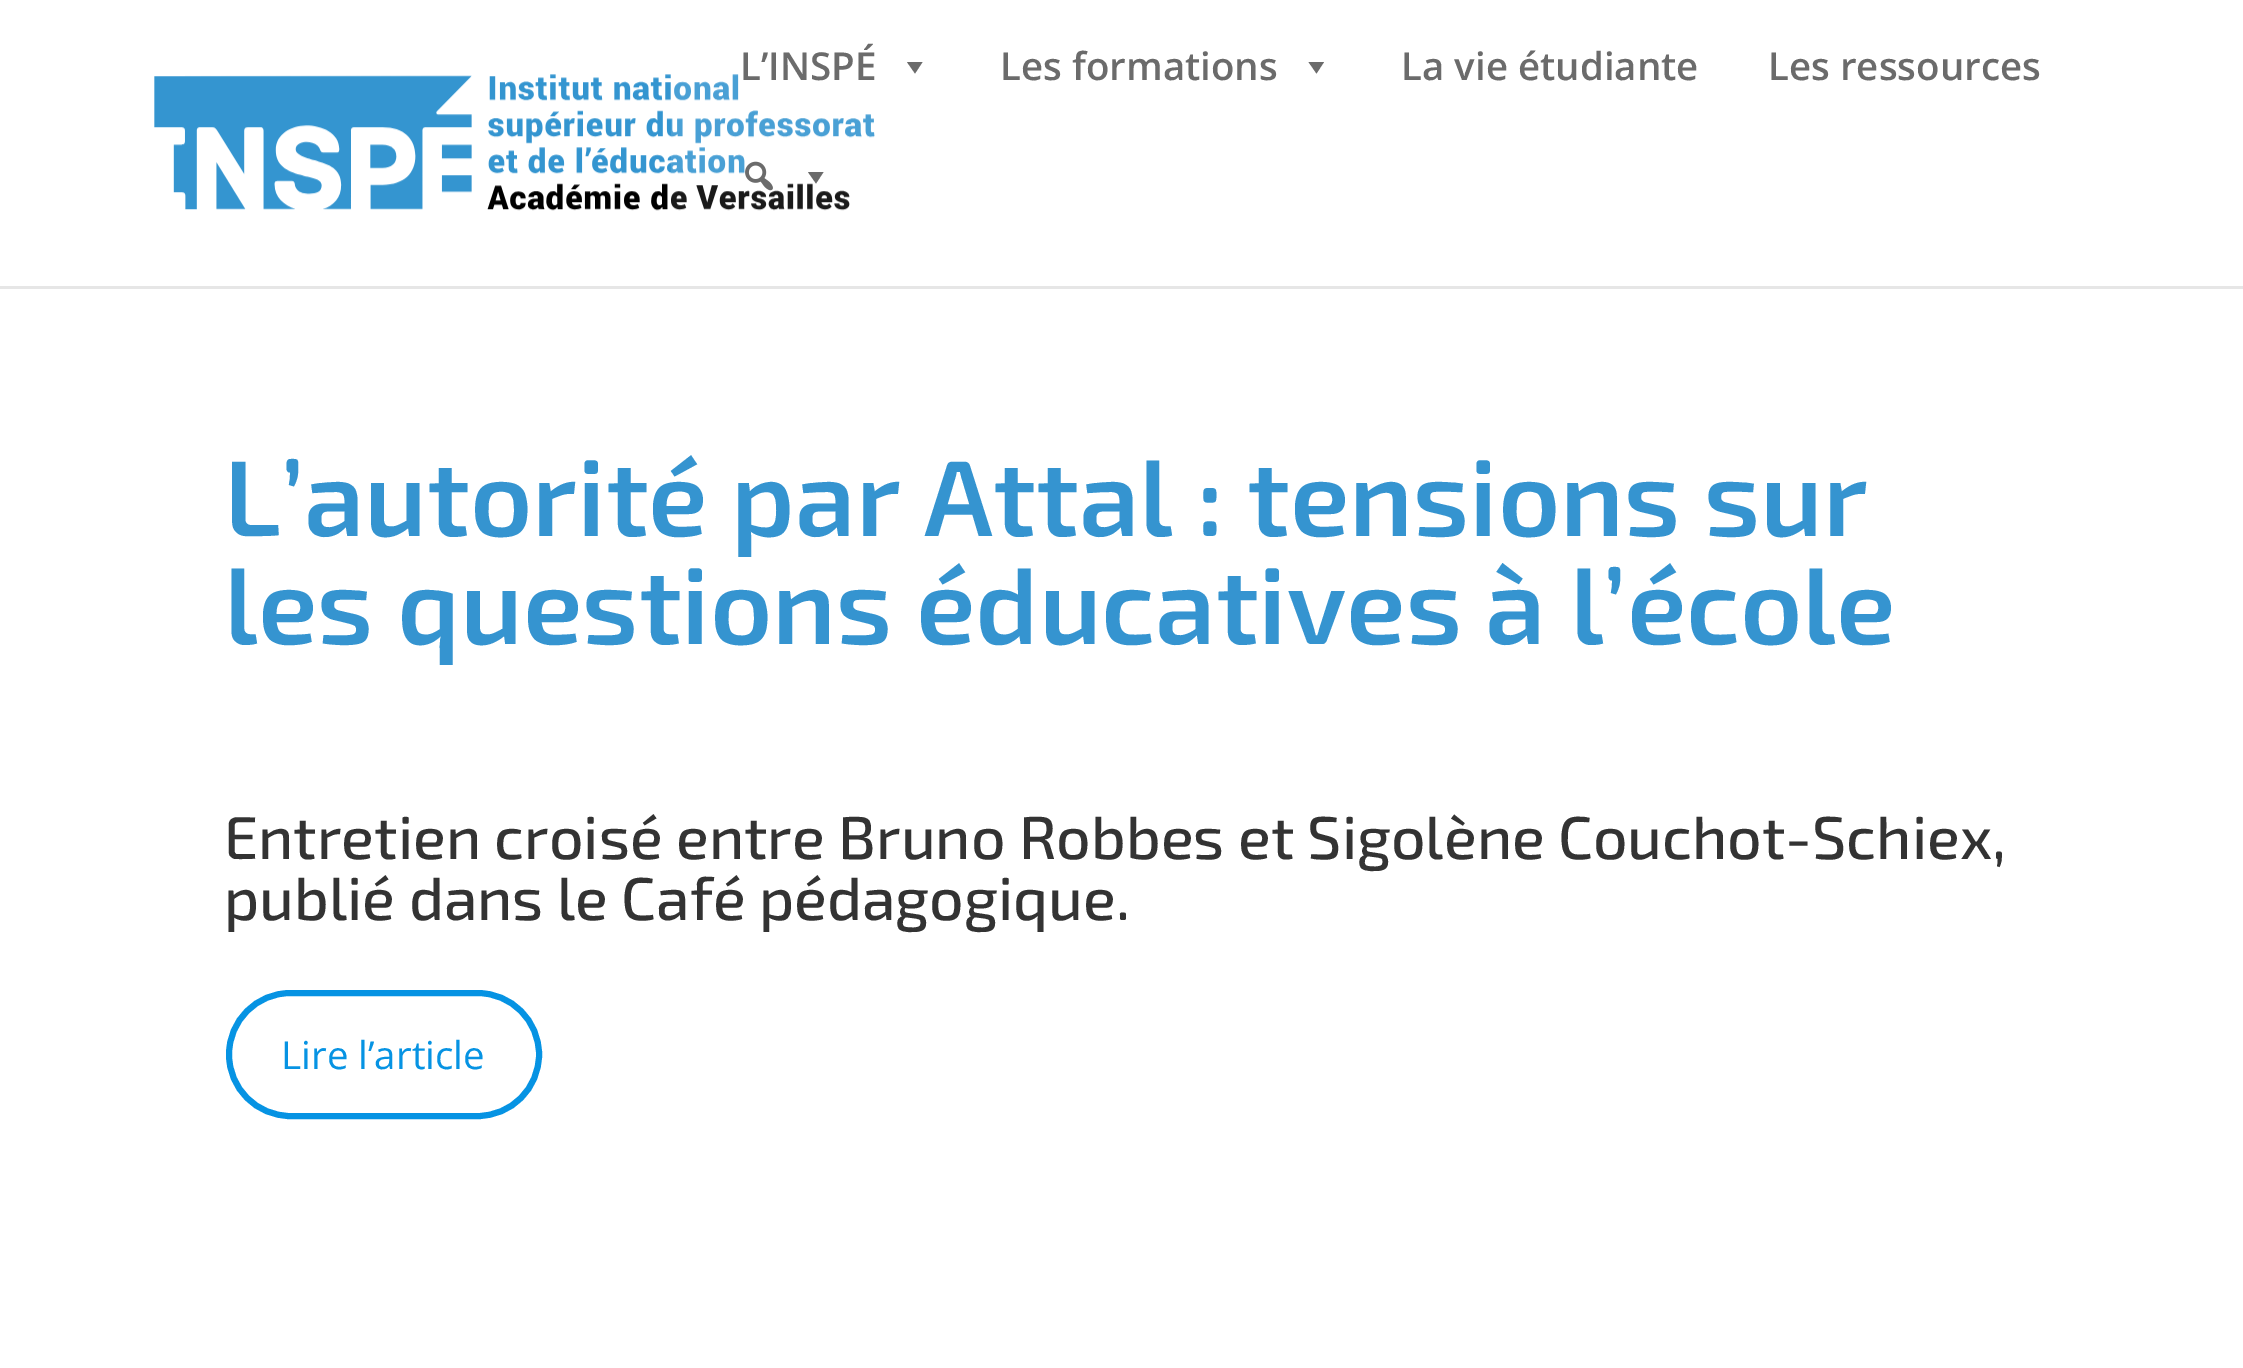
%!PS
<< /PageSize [2243 1368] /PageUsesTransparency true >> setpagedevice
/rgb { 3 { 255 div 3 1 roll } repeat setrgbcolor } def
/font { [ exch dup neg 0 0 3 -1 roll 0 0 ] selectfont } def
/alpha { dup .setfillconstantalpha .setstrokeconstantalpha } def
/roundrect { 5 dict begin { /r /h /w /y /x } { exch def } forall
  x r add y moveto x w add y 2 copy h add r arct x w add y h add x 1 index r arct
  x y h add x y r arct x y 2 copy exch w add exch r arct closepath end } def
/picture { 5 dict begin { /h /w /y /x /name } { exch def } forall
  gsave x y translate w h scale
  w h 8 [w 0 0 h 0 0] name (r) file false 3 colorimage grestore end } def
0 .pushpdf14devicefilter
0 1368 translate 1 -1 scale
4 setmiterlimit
255 255 255 rgb
0 0 2243 1368 rectfill
230 230 230 rgb
0 286 2243 3 rectfill
(img/2.rgb) 154 74 721 137 picture
0.1 alpha
255 255 255 rgb
671 74 204 136 rectfill
1 alpha
107 107 107 rgb
922.5 62 moveto 915 73.5 lineto 907 62 lineto closepath fill
1324 62 moveto 1316.5 73.5 lineto 1308.5 62 lineto closepath fill
(img/1.rgb) 745 161 28 30 picture
823.5 172 moveto 816 183.5 lineto 808 172 lineto closepath fill
6 147 227 rgb
6 setlinewidth
229 993 310 123 61.5 roundrect stroke
/OpenSans-SemiBold 38.5 font
107 107 107 rgb
[
  [(L’INSPÉ) 740 80]
  [(Les formations) 1000 80]
  [(La vie étudiante) 1401 80]
  [(Les ressources) 1768 80]
] { aload pop moveto show } forall
/Exo2-SemiBold 107.75 font
53 148 208 rgb
224 536 moveto (L’autorité par Attal : tensions sur) show
224 644 moveto (les questions éducatives à l’école) show
/Exo2-Medium 60.5 font
51 51 51 rgb
224 859 moveto (Entretien croisé entre Bruno Robbes et Sigolène Couchot-Schiex,) show
224 920 moveto (publié dans le Café pédagogique.) show
/OpenSans-Regular 38.5 font
6 147 227 rgb
281 1069 moveto (Lire l’article) show
.poppdf14devicefilter showpage
